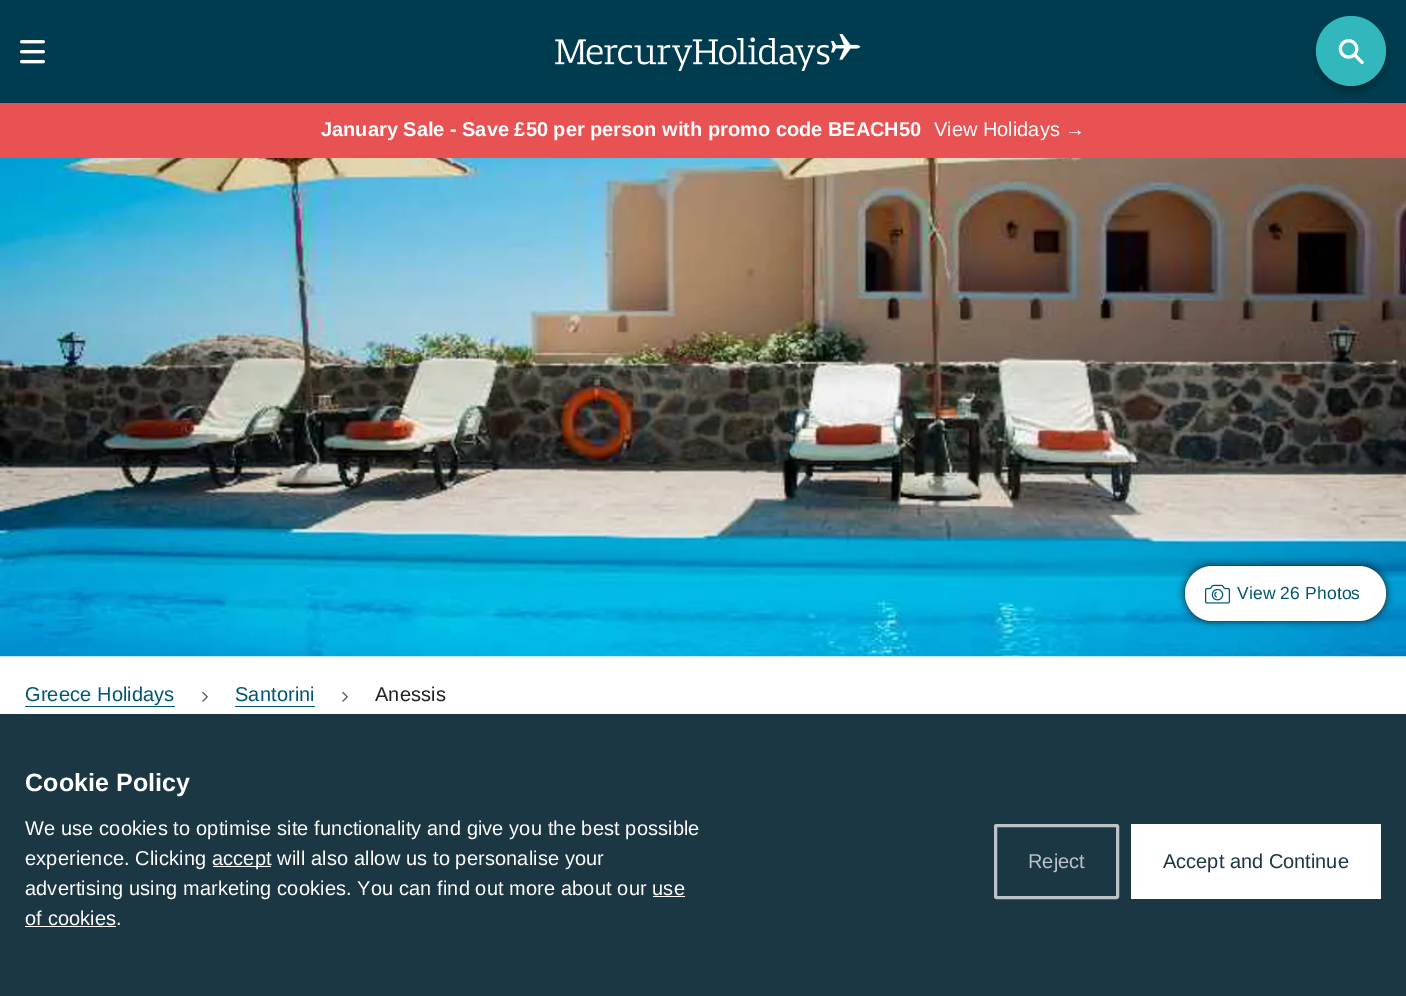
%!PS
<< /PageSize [1406 996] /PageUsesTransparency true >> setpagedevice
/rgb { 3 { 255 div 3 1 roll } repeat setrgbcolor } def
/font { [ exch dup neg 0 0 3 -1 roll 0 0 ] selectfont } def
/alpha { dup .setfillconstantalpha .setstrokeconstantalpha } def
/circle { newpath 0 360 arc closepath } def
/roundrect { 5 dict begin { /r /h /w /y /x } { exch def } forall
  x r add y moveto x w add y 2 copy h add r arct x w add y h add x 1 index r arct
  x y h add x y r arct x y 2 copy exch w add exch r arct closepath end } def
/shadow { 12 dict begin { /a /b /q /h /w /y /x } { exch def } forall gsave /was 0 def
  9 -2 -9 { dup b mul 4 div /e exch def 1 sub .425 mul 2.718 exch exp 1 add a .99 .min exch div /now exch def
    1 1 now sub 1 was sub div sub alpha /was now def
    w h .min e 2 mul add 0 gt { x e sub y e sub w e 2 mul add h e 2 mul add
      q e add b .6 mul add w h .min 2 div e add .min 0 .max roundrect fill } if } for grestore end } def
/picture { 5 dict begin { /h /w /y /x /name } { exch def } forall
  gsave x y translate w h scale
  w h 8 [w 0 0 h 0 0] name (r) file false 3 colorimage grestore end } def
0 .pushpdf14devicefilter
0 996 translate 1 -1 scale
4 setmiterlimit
255 255 255 rgb
0 0 1406 996 rectfill
0 60 79 rgb
0 0 1406 103 rectfill
(img/1.rgb) 20 40 25 24 picture
(img/2.rgb) 555 34 306 37 picture
233 82 83 rgb
0 103 1406 55 rectfill
0 0 0 rgb
1316 24 70 70 35 6 0.14 shadow
1318 21 67 68 33.5 3 0.2 shadow
49 183 188 rgb
1351 51 35 circle fill
(img/3.rgb) 1338 39 26 25 picture
(img/4.rgb) 0 158 1406 499 picture
25 25 25 rgb
1185 566 201 55 27.5 4 1 shadow
255 255 255 rgb
1185 566 201 55 27.5 roundrect fill
(img/5.rgb) 1205 584 25 20 picture
0 86 114 rgb
25 706 150 1 rectfill
(img/6.rgb) 202 691 6 11 picture
235 706 80 1 rectfill
(img/6.rgb) 342 691 6 11 picture
[
  [0 714 1406 282 27 55 68]
  [213 866 58 1 255 255 255]
  [653 896 32 1 255 255 255]
  [25 926 91 1 255 255 255]
] { aload pop rgb rectfill } forall
187 195 199 rgb
3 setlinewidth
995.5 825.5 122 72 1 roundrect stroke
255 255 255 rgb
1131 824 250 75 rectfill
/LiberationSans-Bold 20 font
321 136 moveto (January Sale - Save £50 per person with promo code BEACH50) show
/LiberationSans-Regular 20 font
934 136 moveto (View Holidays →) show
/LiberationSans-Regular 17.5 font
0 86 114 rgb
1237 599 moveto 0.12 0 (View 26 Photos) ashow
/LiberationSans-Regular 20 font
25 701 moveto 0.12 0 (Greece Holidays) ashow
235 701 moveto 0.12 0 (Santorini) ashow
33 33 33 rgb
375 701 moveto 0.12 0 (Anessis) ashow
/LiberationSans-Bold 25 font
255 255 255 rgb
25 791 moveto 0.12 0 (Cookie Policy) ashow
/LiberationSans-Regular 20 font
25 835 moveto 0.12 0 (We use cookies to optimise site functionality and give you the best possible) ashow
25 865 moveto 0.12 0 (experience. Clicking) ashow
212 865 moveto 0.12 0 (accept will also allow us to personalise your) ashow
25 895 moveto 0.12 0 (advertising using marketing cookies. You can find out more about our use) ashow
25 925 moveto 0.12 0 (of cookies.) ashow
187 195 199 rgb
1028 868 moveto (Reject) show
27 55 68 rgb
1163 868 moveto (Accept and Continue) show
.poppdf14devicefilter showpage
